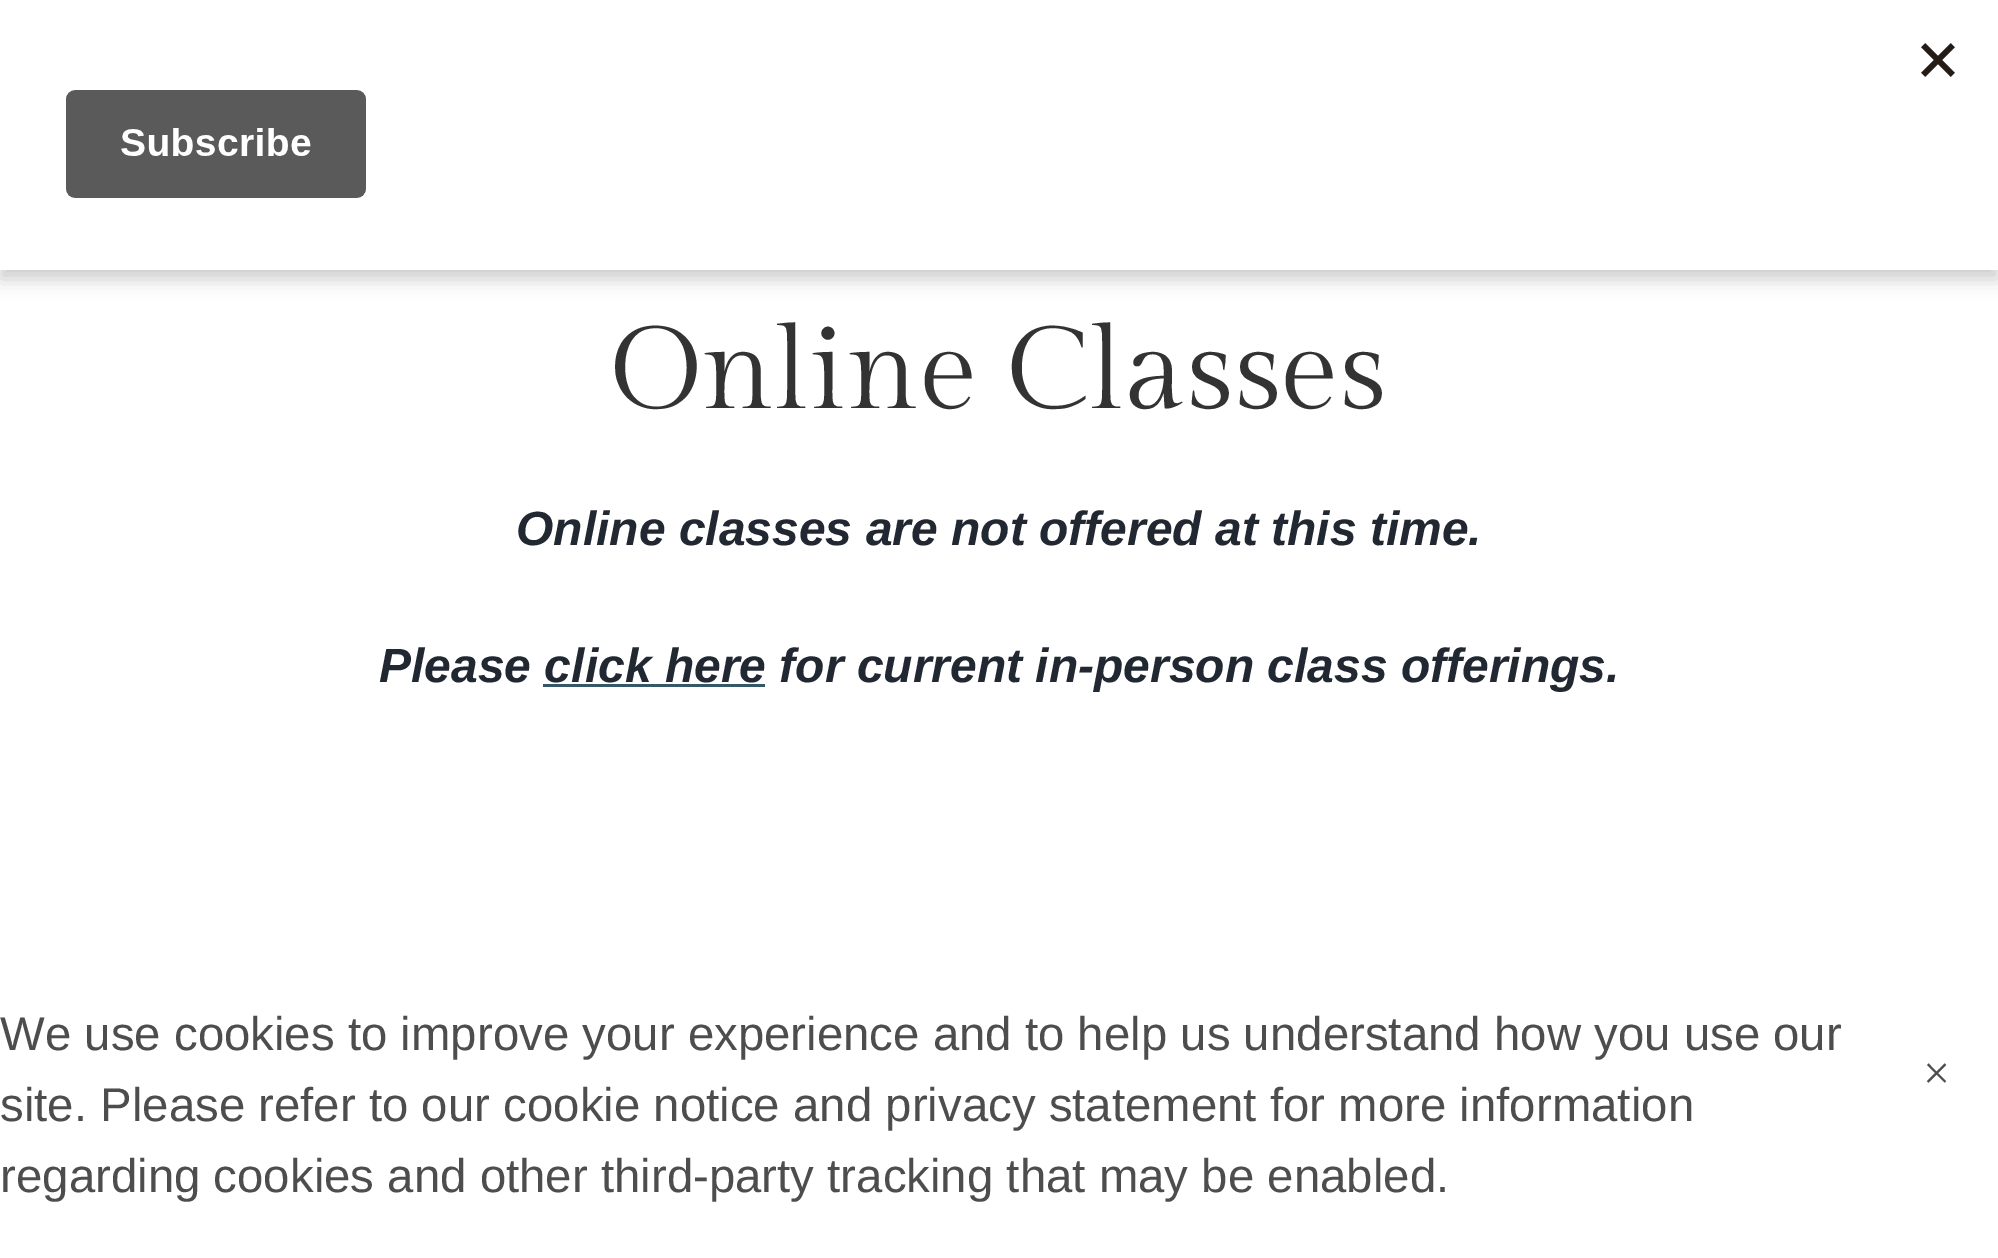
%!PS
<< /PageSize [1998 1258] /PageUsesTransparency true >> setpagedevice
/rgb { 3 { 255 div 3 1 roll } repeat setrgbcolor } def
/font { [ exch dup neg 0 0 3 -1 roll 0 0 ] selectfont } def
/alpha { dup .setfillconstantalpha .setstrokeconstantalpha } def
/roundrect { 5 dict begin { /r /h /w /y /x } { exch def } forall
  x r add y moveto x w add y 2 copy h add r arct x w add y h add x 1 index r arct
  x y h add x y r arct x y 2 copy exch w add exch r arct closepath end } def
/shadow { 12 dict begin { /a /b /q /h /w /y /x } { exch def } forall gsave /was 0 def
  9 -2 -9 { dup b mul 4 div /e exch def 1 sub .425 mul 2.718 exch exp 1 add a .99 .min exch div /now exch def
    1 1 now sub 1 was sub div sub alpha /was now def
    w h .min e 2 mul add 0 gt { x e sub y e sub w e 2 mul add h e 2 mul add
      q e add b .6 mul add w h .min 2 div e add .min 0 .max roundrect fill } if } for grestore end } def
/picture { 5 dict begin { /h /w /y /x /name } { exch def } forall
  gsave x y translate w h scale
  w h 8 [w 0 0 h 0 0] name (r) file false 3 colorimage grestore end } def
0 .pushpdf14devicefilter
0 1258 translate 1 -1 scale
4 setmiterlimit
255 255 255 rgb
0 0 1998 1258 rectfill
0 0 0 rgb
0 9 1998 270 0 9 0.2 shadow
255 255 255 rgb
0 0 1998 270 rectfill
(img/1.rgb) 66 43 1889 155 picture
/GildaDisplay-Regular 116.5 font
51 51 51 rgb
611 408 moveto (Online Classes) show
/Arimo-BoldItalic 48 font
33 40 50 rgb
516 545 moveto (Online classes are not offered at this time.) show
379 682 moveto (Please click here for current in-person class offerings.) show
53 88 105 rgb
543 684 222 3 rectfill
/Arimo-Regular 47.4 font
77 77 77 rgb
[
  [(We use cookies to improve your experience and to help us understand how you use our) 0 1050]
  [(site. Please refer to our cookie notice and privacy statement for more information) 0 1121]
  [(regarding cookies and other third-party tracking that may be enabled.) 0 1192]
] { aload pop moveto show } forall
/LiberationSerif-Regular 48 font
1923 1089 moveto (×) show
.poppdf14devicefilter showpage
